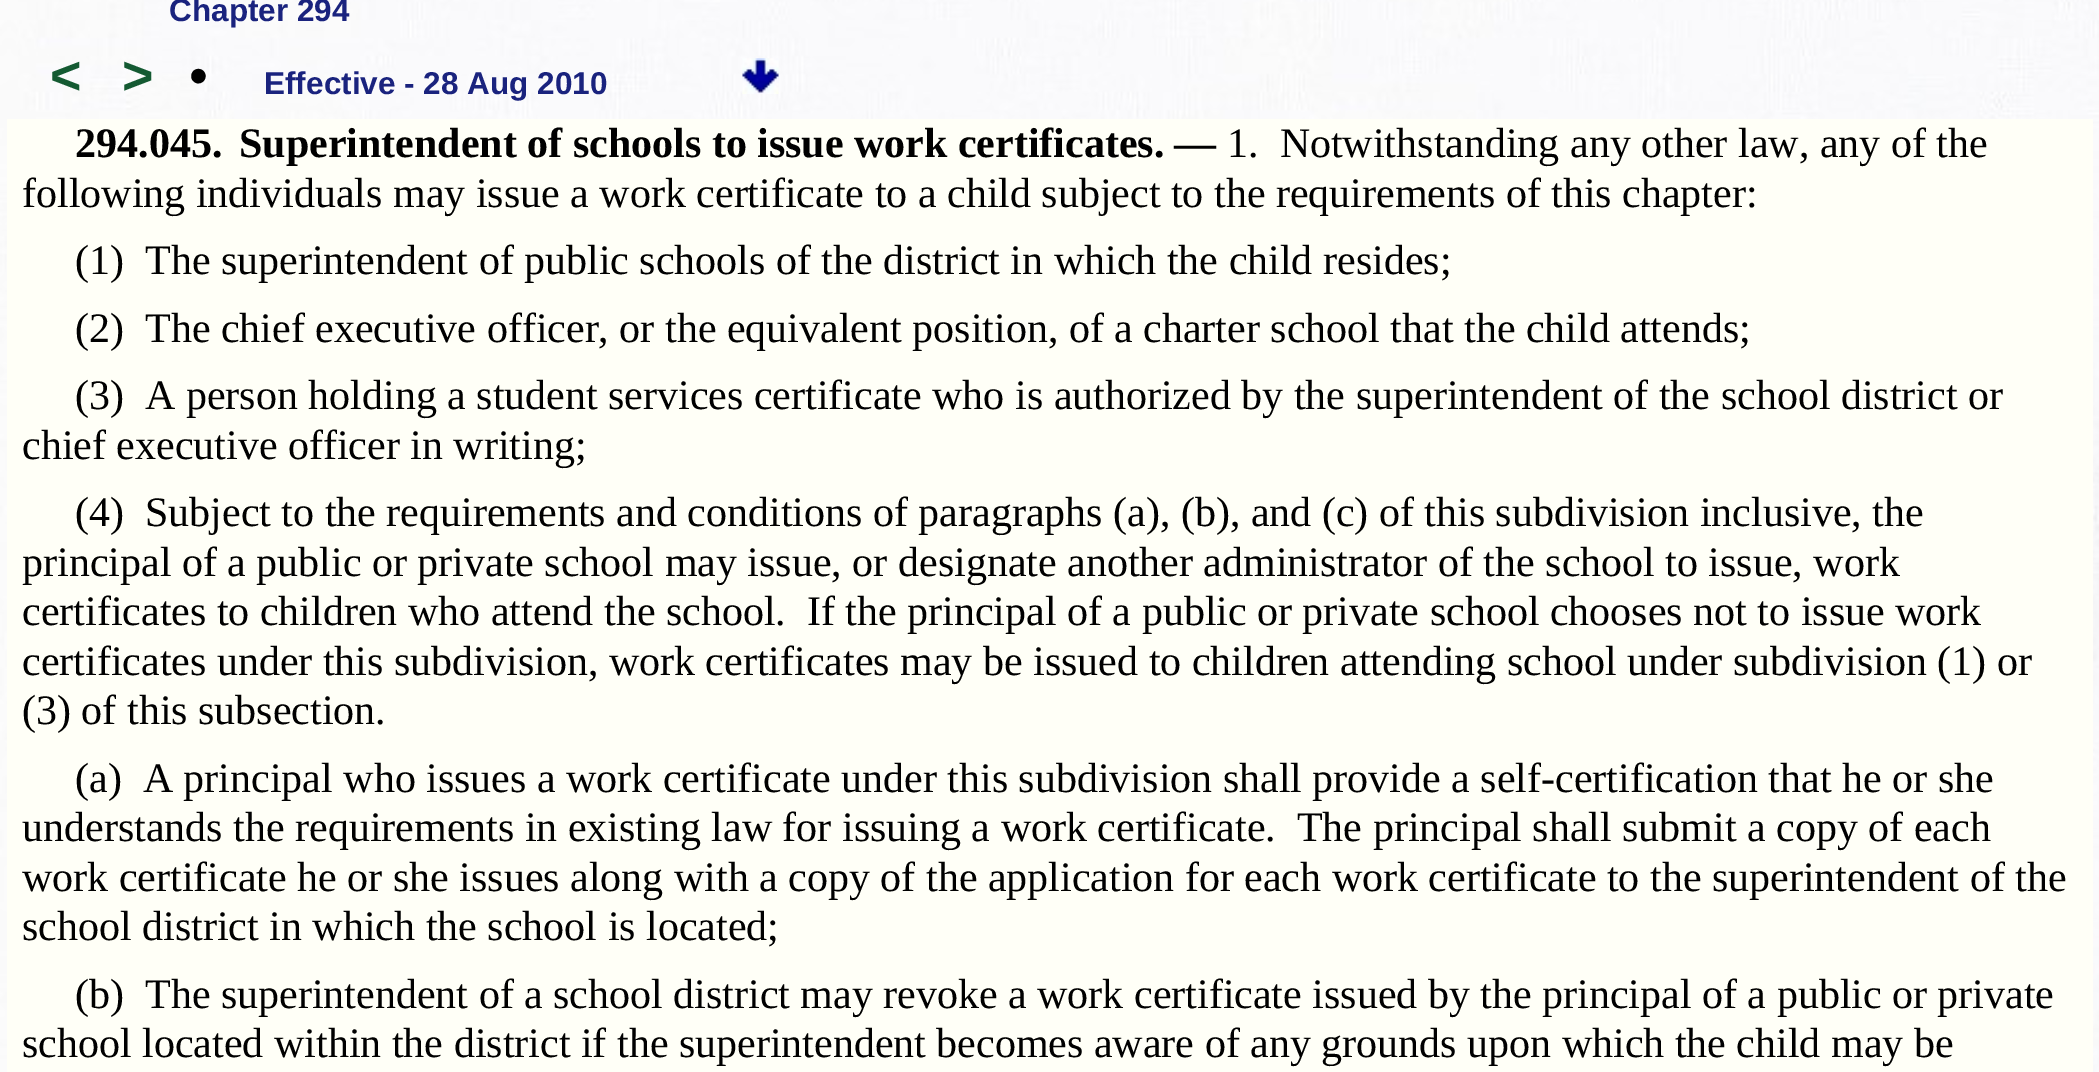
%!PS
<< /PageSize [2099 1072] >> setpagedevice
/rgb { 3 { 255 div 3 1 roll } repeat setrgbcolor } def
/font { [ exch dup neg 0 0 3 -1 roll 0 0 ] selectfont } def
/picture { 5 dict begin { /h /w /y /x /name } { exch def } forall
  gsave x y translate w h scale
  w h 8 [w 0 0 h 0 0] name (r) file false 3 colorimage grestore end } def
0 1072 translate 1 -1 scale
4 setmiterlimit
255 255 255 rgb
0 0 2099 1072 rectfill
(img/1.rgb) 0 0 2099 1072 picture
(img/2.rgb) 742 58 37 36 picture
255 255 247 rgb
7 119 2086 953 rectfill
/LiberationSans-Bold 31.5 font
26 35 126 rgb
169 21 moveto (Chapter 294) show
/LiberationSans-Bold 54 font
20 90 50 rgb
50 94 moveto (<) show
122 94 moveto (>) show
/LiberationSans-Regular 54 font
0 0 0 rgb
189 94 moveto (•) show
/LiberationSans-Bold 31.5 font
26 35 126 rgb
264 94 moveto (Effective - 28 Aug 2010) show
/LiberationSerif-Bold 42 font
0 0 0 rgb
[
  [(294.045.) 75 157]
  [(Superintendent of schools to issue work certificates.) 239 157]
  [(—) 1174 157]
] { aload pop moveto show } forall
/LiberationSerif-Regular 42 font
[
  [(1.  Notwithstanding any other law, any of the) 1227 157]
  [(following individuals may issue a work certificate to a child subject to the requirements of this chapter:) 22 207]
  [(\(1\)  The superintendent of public schools of the district in which the child resides;) 75 274]
  [(\(2\)  The chief executive officer, or the equivalent position, of a charter school that the child attends;) 75 342]
  [(\(3\)  A person holding a student services certificate who is authorized by the superintendent of the school district or) 75 409]
  [(chief executive officer in writing;) 22 459]
  [(\(4\)  Subject to the requirements and conditions of paragraphs \(a\), \(b\), and \(c\) of this subdivision inclusive, the) 75 526]
  [(principal of a public or private school may issue, or designate another administrator of the school to issue, work) 22 576]
  [(certificates to children who attend the school.  If the principal of a public or private school chooses not to issue work) 22 625]
  [(certificates under this subdivision, work certificates may be issued to children attending school under subdivision \(1\) or) 22 675]
  [(\(3\) of this subsection.) 22 724]
  [(\(a\)  A principal who issues a work certificate under this subdivision shall provide a self-certification that he or she) 75 792]
  [(understands the requirements in existing law for issuing a work certificate.  The principal shall submit a copy of each) 22 841]
  [(work certificate he or she issues along with a copy of the application for each work certificate to the superintendent of the) 22 891]
  [(school district in which the school is located;) 22 940]
  [(\(b\)  The superintendent of a school district may revoke a work certificate issued by the principal of a public or private) 75 1008]
  [(school located within the district if the superintendent becomes aware of any grounds upon which the child may be) 22 1057]
] { aload pop moveto show } forall
showpage
